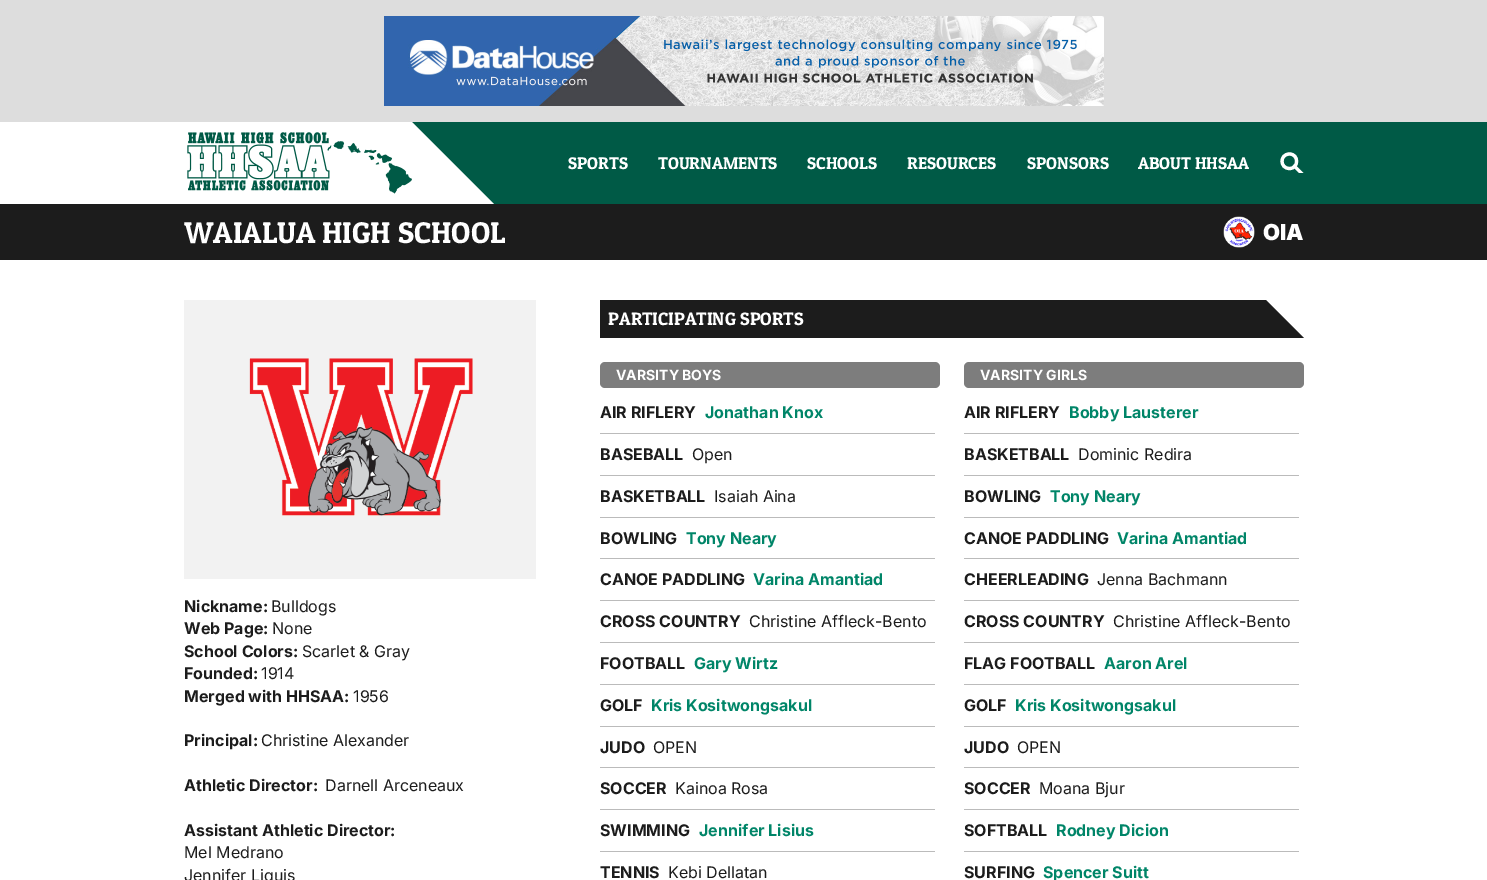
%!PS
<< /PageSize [1487 880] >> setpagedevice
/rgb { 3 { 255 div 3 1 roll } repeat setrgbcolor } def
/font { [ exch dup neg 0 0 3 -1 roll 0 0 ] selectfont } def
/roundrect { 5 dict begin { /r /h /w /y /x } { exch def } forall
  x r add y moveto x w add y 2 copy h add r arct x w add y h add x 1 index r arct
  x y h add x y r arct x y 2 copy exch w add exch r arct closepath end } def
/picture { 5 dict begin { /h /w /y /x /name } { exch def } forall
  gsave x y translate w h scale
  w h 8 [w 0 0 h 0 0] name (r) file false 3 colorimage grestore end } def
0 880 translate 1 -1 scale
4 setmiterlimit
255 255 255 rgb
0 0 1487 880 rectfill
221 221 221 rgb
0 0 1487 122 rectfill
(img/1.rgb) 384 16 720 90 picture
0 90 70 rgb
412 122 1075 82 rectfill
255 255 255 rgb
0 122 moveto 0 204 lineto 494 204 lineto 412 122 lineto closepath fill
(img/2.rgb) 187 132 225 62 picture
3.2 setlinewidth
1 setlinecap
1 setlinejoin
1289.5 168.5 moveto 1299 168.5 1299 154 1289.5 154 curveto 1279.5 154 1279.5 168.5 1289.5 168.5 curveto closepath stroke
1294.5 164 moveto 1303.5 173 lineto 1299 173 lineto 1292.5 166.5 lineto closepath eofill
28 28 28 rgb
0 204 1487 56 rectfill
(img/3.rgb) 1223 216 32 32 picture
242 242 242 rgb
184 300 352 279 rectfill
(img/4.rgb) 249 358 224 158 picture
28 28 28 rgb
600 300 moveto 600 338 lineto 1304 338 lineto 1266 300 lineto closepath fill
125 125 125 rgb
600 362 340 26 5 roundrect fill
[
  [600 433 335 1 187 187 187]
  [600 475 335 1 187 187 187]
  [600 517 335 1 187 187 187]
  [600 558 335 1 187 187 187]
  [600 600 335 1 187 187 187]
  [600 642 335 1 187 187 187]
  [600 684 335 1 187 187 187]
  [600 726 335 1 187 187 187]
  [600 767 335 1 187 187 187]
  [600 809 335 1 187 187 187]
  [600 851 335 1 187 187 187]
] { aload pop rgb rectfill } forall
125 125 125 rgb
964 362 340 26 5 roundrect fill
[
  [964 433 335 1 187 187 187]
  [964 475 335 1 187 187 187]
  [964 517 335 1 187 187 187]
  [964 558 335 1 187 187 187]
  [964 600 335 1 187 187 187]
  [964 642 335 1 187 187 187]
  [964 684 335 1 187 187 187]
  [964 726 335 1 187 187 187]
  [964 767 335 1 187 187 187]
  [964 809 335 1 187 187 187]
  [964 851 335 1 187 187 187]
] { aload pop rgb rectfill } forall
/PatuaOne-Regular 17 font
255 255 255 rgb
[
  [(SPORTS) 568 169]
  [(TOURNAMENTS) 658 169]
  [(SCHOOLS) 807 169]
  [(RESOURCES) 907 169]
  [(SPONSORS) 1027 169]
  [(ABOUT HHSAA) 1138 169]
] { aload pop moveto show } forall
/PatuaOne-Regular 30 font
184 243 moveto (WAIALUA HIGH SCHOOL) show
/Inter-Black 22 font
1263 240 moveto (OIA) show
/Inter-Bold 16 font
28 28 28 rgb
184 612 moveto (Nickname:) show
/Inter-Regular 16 font
271 612 moveto (Bulldogs) show
/Inter-Bold 16 font
184 634 moveto (Web Page:) show
/Inter-Regular 16 font
272 634 moveto (None) show
/Inter-Bold 16 font
184 657 moveto (School Colors:) show
/Inter-Regular 16 font
302 657 moveto (Scarlet & Gray) show
/Inter-Bold 16 font
184 679 moveto (Founded:) show
/Inter-Regular 16 font
261 679 moveto (1914) show
/Inter-Bold 16 font
184 702 moveto (Merged with HHSAA:) show
/Inter-Regular 16 font
353 702 moveto (1956) show
/Inter-Bold 16 font
184 746 moveto (Principal:) show
/Inter-Regular 16 font
261 746 moveto (Christine Alexander) show
/Inter-Bold 16 font
184 791 moveto (Athletic Director:) show
/Inter-Regular 16 font
325 791 moveto (Darnell Arceneaux) show
/Inter-Bold 16 font
184 836 moveto (Assistant Athletic Director:) show
/Inter-Regular 16 font
184 858 moveto (Mel Medrano) show
184 881 moveto (Jennifer Liquis) show
/PatuaOne-Regular 18 font
255 255 255 rgb
608 325 moveto (PARTICIPATING SPORTS) show
/Inter-Bold 14 font
616 380 moveto (VARSITY BOYS) show
/Inter-Bold 16 font
28 28 28 rgb
600 418 moveto (AIR RIFLERY) show
0 133 104 rgb
705 418 moveto (Jonathan Knox) show
28 28 28 rgb
600 460 moveto (BASEBALL) show
/Inter-Regular 16 font
692 460 moveto (Open) show
/Inter-Bold 16 font
600 502 moveto (BASKETBALL) show
/Inter-Regular 16 font
714 502 moveto (Isaiah Aina) show
/Inter-Bold 16 font
600 544 moveto (BOWLING) show
0 133 104 rgb
686 544 moveto (Tony Neary) show
28 28 28 rgb
600 585 moveto (CANOE PADDLING) show
0 133 104 rgb
753 585 moveto (Varina Amantiad) show
28 28 28 rgb
600 627 moveto (CROSS COUNTRY) show
/Inter-Regular 16 font
749 627 moveto (Christine Affleck-Bento) show
/Inter-Bold 16 font
600 669 moveto (FOOTBALL) show
0 133 104 rgb
694 669 moveto (Gary Wirtz) show
28 28 28 rgb
600 711 moveto (GOLF) show
0 133 104 rgb
651 711 moveto (Kris Kositwongsakul) show
28 28 28 rgb
600 753 moveto (JUDO) show
/Inter-Regular 16 font
653 753 moveto (OPEN) show
/Inter-Bold 16 font
600 794 moveto (SOCCER) show
/Inter-Regular 16 font
675 794 moveto (Kainoa Rosa) show
/Inter-Bold 16 font
600 836 moveto (SWIMMING) show
0 133 104 rgb
699 836 moveto (Jennifer Lisius) show
28 28 28 rgb
600 878 moveto (TENNIS) show
/Inter-Regular 16 font
668 878 moveto (Kebi Dellatan) show
/Inter-Bold 14 font
255 255 255 rgb
980 380 moveto (VARSITY GIRLS) show
/Inter-Bold 16 font
28 28 28 rgb
964 418 moveto (AIR RIFLERY) show
0 133 104 rgb
1069 418 moveto (Bobby Lausterer) show
28 28 28 rgb
964 460 moveto (BASKETBALL) show
/Inter-Regular 16 font
1078 460 moveto (Dominic Redira) show
/Inter-Bold 16 font
964 502 moveto (BOWLING) show
0 133 104 rgb
1050 502 moveto (Tony Neary) show
28 28 28 rgb
964 544 moveto (CANOE PADDLING) show
0 133 104 rgb
1117 544 moveto (Varina Amantiad) show
28 28 28 rgb
964 585 moveto (CHEERLEADING) show
/Inter-Regular 16 font
1097 585 moveto (Jenna Bachmann) show
/Inter-Bold 16 font
964 627 moveto (CROSS COUNTRY) show
/Inter-Regular 16 font
1113 627 moveto (Christine Affleck-Bento) show
/Inter-Bold 16 font
964 669 moveto (FLAG FOOTBALL) show
0 133 104 rgb
1104 669 moveto (Aaron Arel) show
28 28 28 rgb
964 711 moveto (GOLF) show
0 133 104 rgb
1015 711 moveto (Kris Kositwongsakul) show
28 28 28 rgb
964 753 moveto (JUDO) show
/Inter-Regular 16 font
1017 753 moveto (OPEN) show
/Inter-Bold 16 font
964 794 moveto (SOCCER) show
/Inter-Regular 16 font
1039 794 moveto (Moana Bjur) show
/Inter-Bold 16 font
964 836 moveto (SOFTBALL) show
0 133 104 rgb
1056 836 moveto (Rodney Dicion) show
28 28 28 rgb
964 878 moveto (SURFING) show
0 133 104 rgb
1043 878 moveto (Spencer Suitt) show
showpage
